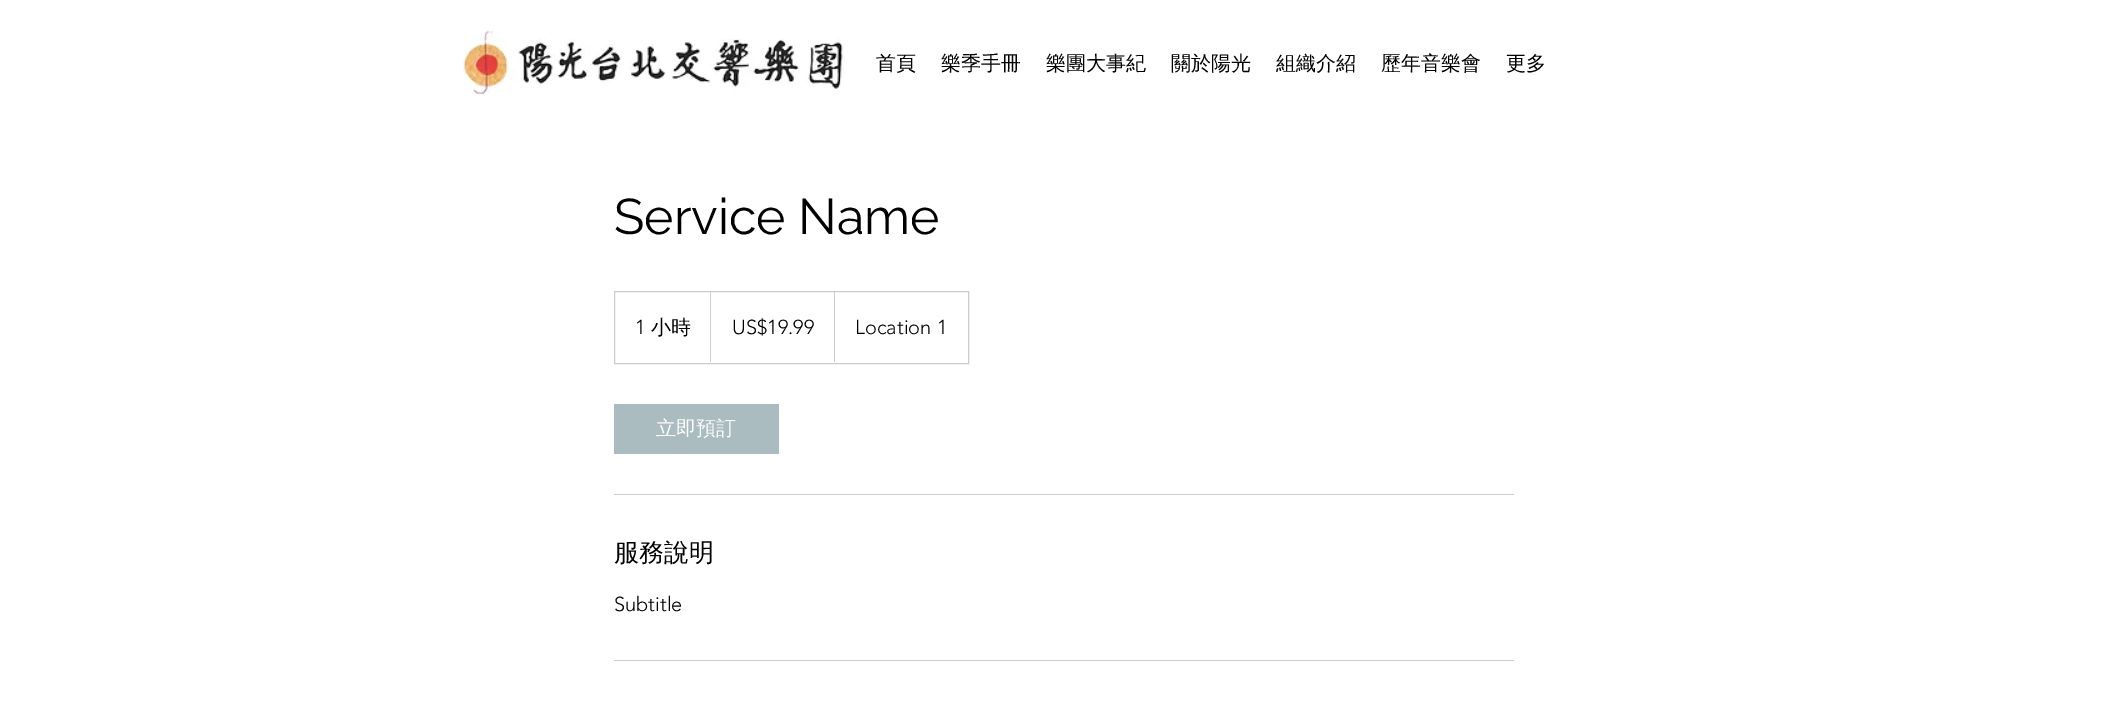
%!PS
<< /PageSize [2127 704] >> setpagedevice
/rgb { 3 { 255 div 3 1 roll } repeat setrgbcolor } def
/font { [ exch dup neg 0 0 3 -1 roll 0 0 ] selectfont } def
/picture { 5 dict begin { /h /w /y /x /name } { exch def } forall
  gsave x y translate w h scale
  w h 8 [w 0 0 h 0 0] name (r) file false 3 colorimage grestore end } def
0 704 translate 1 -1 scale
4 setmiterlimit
255 255 255 rgb
0 0 2127 704 rectfill
(img/1.rgb) 463 29 382 67 picture
204 204 204 rgb
614.5 291.5 354 72 rectstroke
710 362 moveto 710 291 lineto 711 292 lineto 711 362 lineto closepath fill
834 362 moveto 834 291 lineto 835 292 lineto 835 362 lineto closepath fill
[
  [614 404 165 50 170 188 191]
  [614 494 900 1 204 204 204]
  [614 660 900 1 204 204 204]
] { aload pop rgb rectfill } forall
/WenQuanYiZenHei-Medium 20 font
0 0 0 rgb
[
  [(首頁) 876 70]
  [(樂季手冊) 941 70]
  [(樂團大事紀) 1046 70]
  [(關於陽光) 1171 70]
  [(組織介紹) 1276 70]
  [(歷年音樂會) 1381 70]
  [(更多) 1506 70]
] { aload pop moveto show } forall
/Raleway-Regular 50 font
614 234 moveto (Service Name) show
/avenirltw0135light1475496-Light 20 font
635 334 moveto (1) show
/WenQuanYiZenHei-Medium 20 font
651 334 moveto (小時) show
/avenirltw0135light1475496-Light 20 font
732 334 moveto (US$19.99) show
855 334 moveto (Location 1) show
/WenQuanYiZenHei-Medium 20 font
255 255 255 rgb
656 435 moveto (立即預訂) show
/WenQuanYiZenHei-Medium 25 font
0 0 0 rgb
614 561 moveto (服務說明) show
/avenirltw0135light1475496-Light 20 font
614 611 moveto (Subtitle) show
showpage
